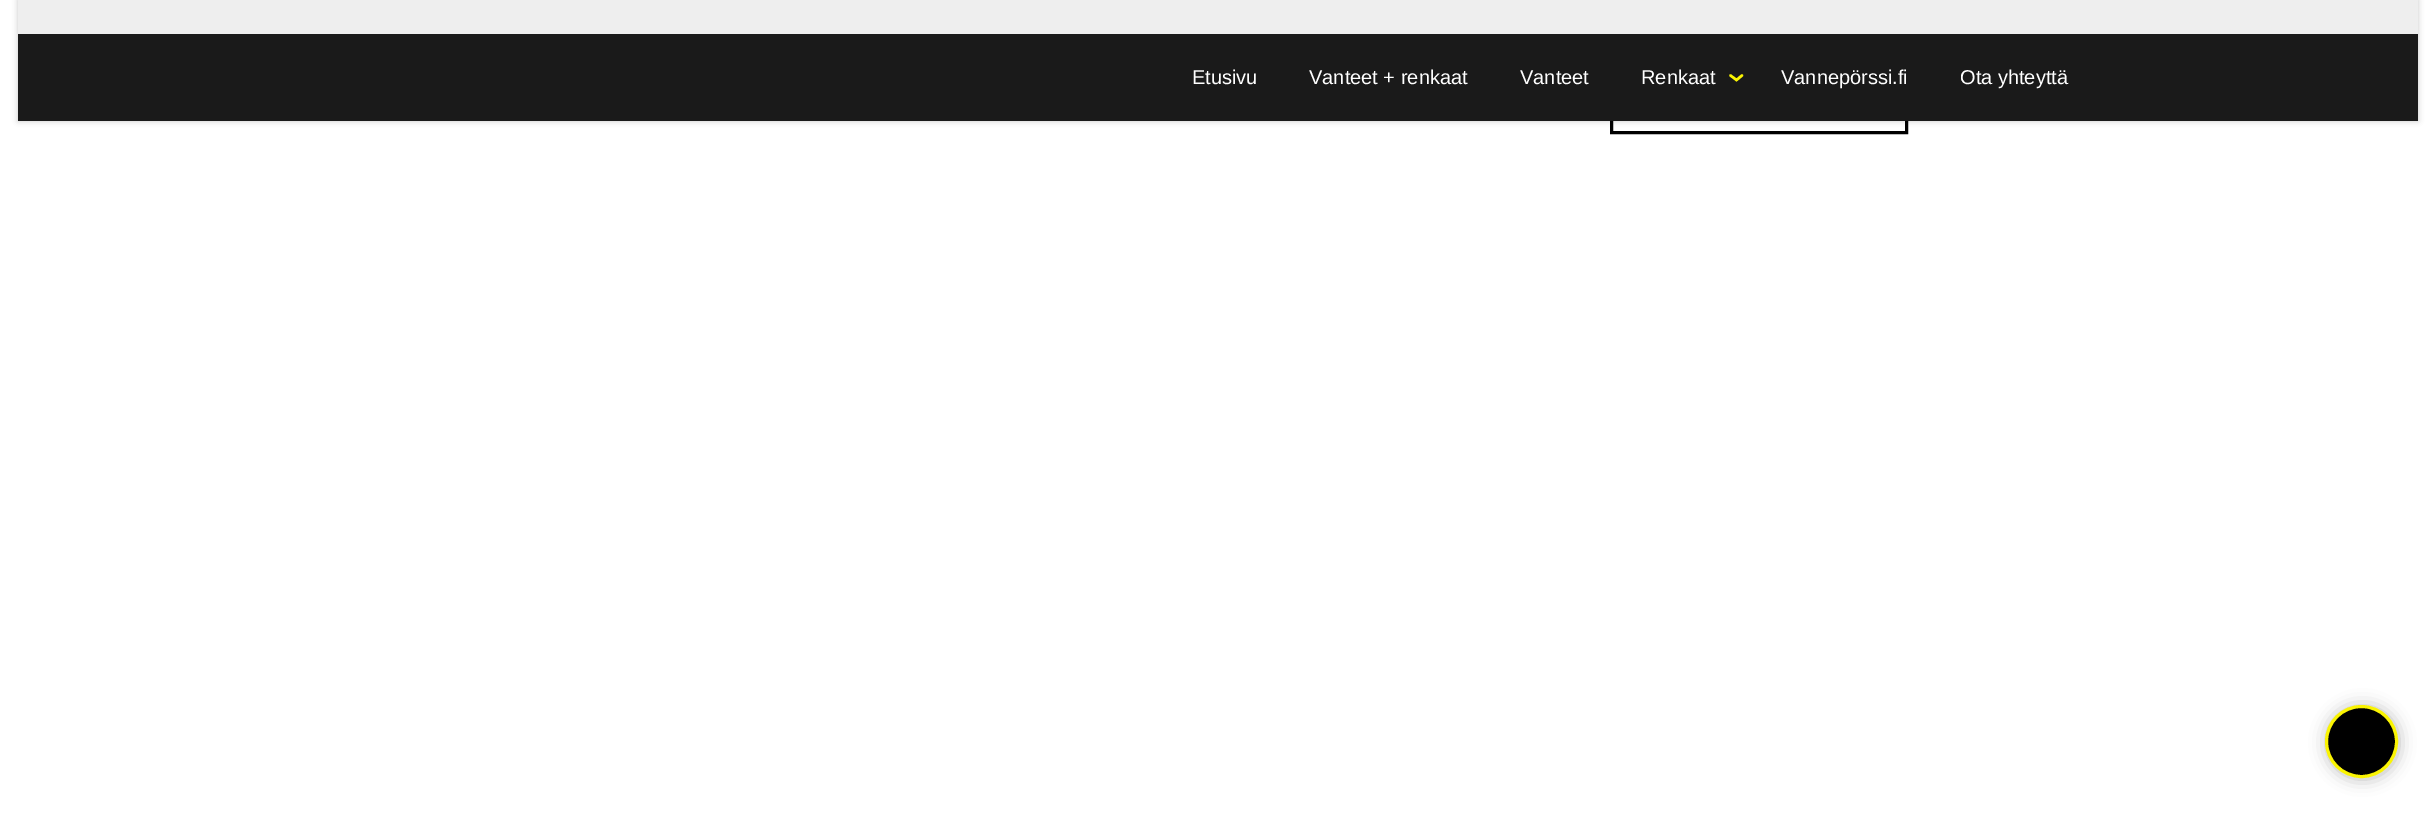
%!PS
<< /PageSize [2434 815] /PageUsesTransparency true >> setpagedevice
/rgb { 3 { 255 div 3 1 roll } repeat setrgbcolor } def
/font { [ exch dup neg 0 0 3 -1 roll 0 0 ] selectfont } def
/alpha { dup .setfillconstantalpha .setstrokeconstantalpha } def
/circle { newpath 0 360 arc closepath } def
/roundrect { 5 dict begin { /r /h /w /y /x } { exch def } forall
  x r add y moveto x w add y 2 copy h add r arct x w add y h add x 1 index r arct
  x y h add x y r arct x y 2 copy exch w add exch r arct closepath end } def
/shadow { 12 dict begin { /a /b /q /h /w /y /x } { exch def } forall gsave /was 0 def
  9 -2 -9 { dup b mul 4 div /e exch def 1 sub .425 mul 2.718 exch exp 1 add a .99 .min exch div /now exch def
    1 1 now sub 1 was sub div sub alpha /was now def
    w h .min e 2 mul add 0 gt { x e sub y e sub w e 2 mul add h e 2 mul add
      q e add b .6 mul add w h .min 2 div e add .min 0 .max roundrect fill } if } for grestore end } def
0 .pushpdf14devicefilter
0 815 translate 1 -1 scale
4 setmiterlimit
255 255 255 rgb
0 0 2434 815 rectfill
0 0 0 rgb
3 setlinewidth
1611.5 91.5 295 41 rectstroke
26 26 26 rgb
18 34 2400 87 rectfill
238 238 238 rgb
18 0 2400 34 rectfill
250 244 2 rgb
2.5 setlinewidth
1 setlinecap
1730.5 75.5 moveto 1736.5 80 lineto 1742 75.5 lineto stroke
gsave
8 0 moveto 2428 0 lineto 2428 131 lineto 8 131 lineto closepath 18 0 moveto 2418 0 lineto 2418 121 lineto 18 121 lineto closepath eoclip newpath
0 0 0 rgb
18 0 2400 121 0 3 0.22 shadow
grestore
0 0 0 rgb
2326 706 73 73 36.5 8 0.27 shadow
2361.5 741.5 35 circle gsave fill grestore
250 244 2 rgb
3 setlinewidth
0 setlinecap
stroke
/LiberationSans-Regular 20 font
255 255 255 rgb
[
  [(Etusivu) 1192 84]
  [(Vanteet + renkaat) 1309 84]
  [(Vanteet) 1520 84]
  [(Renkaat) 1641 84]
  [(Vannepörssi.fi) 1781 84]
  [(Ota yhteyttä) 1960 84]
] { aload pop moveto show } forall
.poppdf14devicefilter showpage
